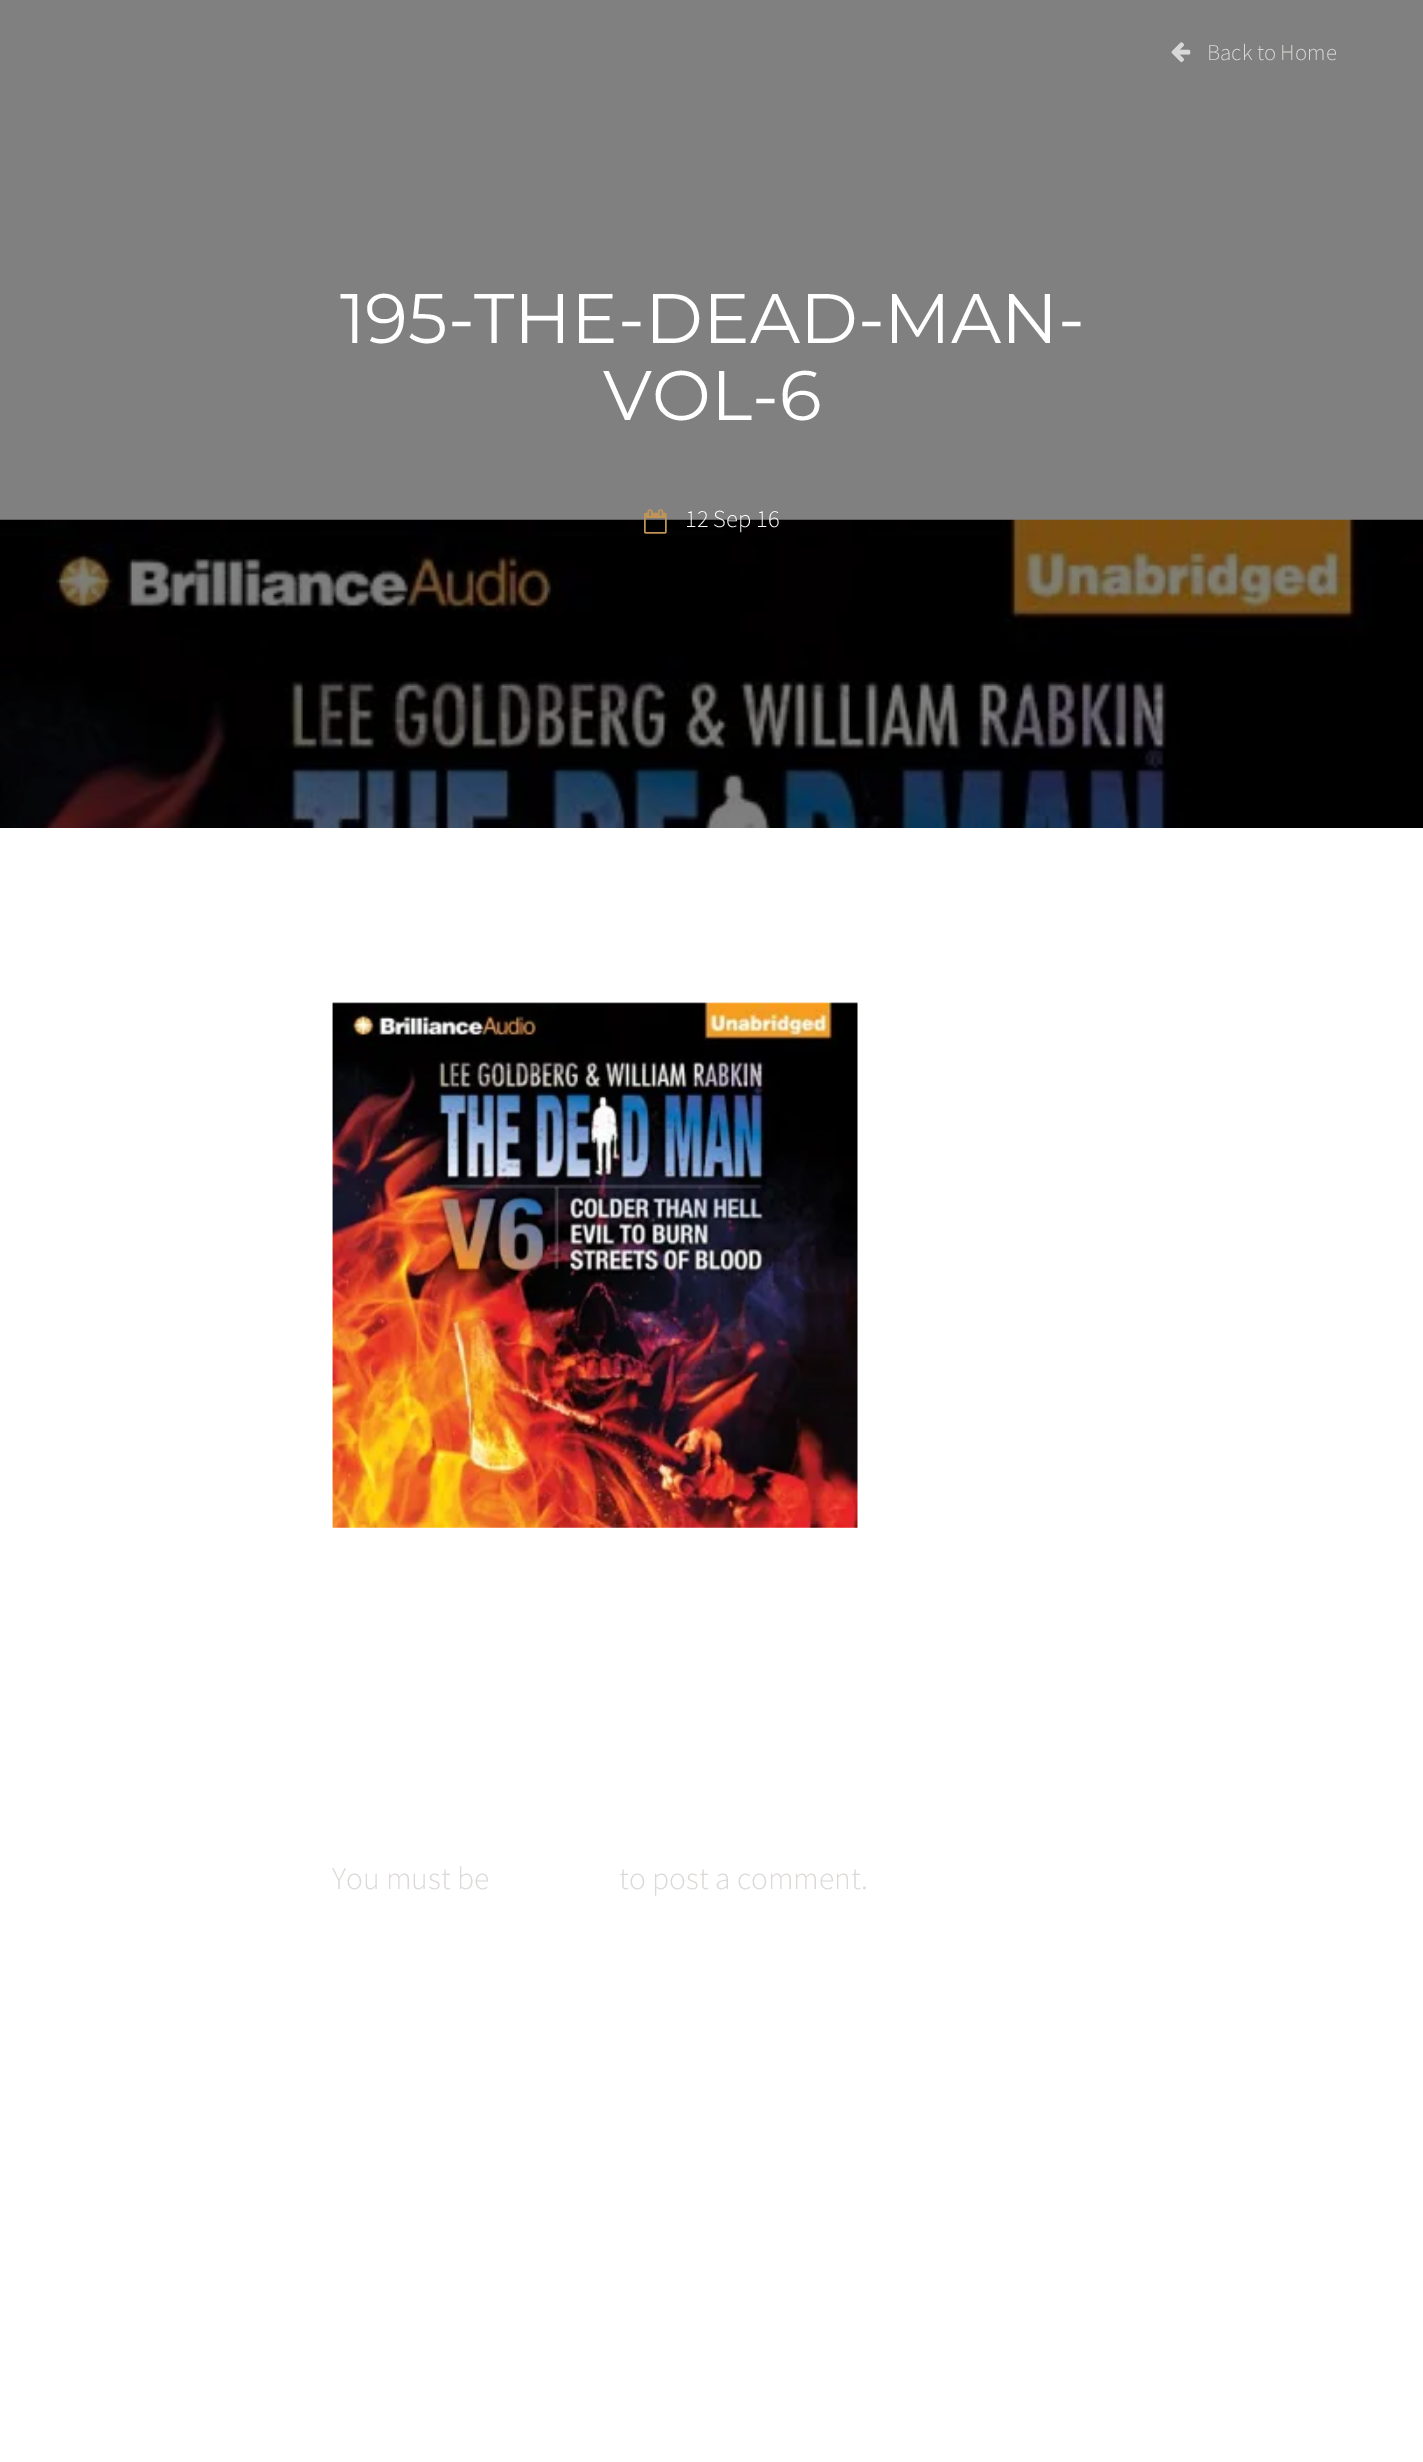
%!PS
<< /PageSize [1423 2462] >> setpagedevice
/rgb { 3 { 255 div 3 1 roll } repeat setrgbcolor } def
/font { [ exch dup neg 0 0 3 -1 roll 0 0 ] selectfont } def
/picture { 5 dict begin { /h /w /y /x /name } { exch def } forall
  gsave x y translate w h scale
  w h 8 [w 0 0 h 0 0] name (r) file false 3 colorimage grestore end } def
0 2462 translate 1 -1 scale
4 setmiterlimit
255 255 255 rgb
0 0 1423 2462 rectfill
128 128 128 rgb
0 0 1423 520 rectfill
(img/1.rgb) 1171 42 20 20 picture
(img/2.rgb) 0 519 1423 309 picture
(img/3.rgb) 644 509 23 25 picture
(img/4.rgb) 332 1002 526 526 picture
/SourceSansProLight-Light 22.75 font
219 216 214 rgb
1207 60 moveto (Back to Home) show
/Montserrat-Regular 70 font
255 255 255 rgb
340 343 moveto (195-THE-DEAD-MAN-) show
603 420 moveto (VOL-6) show
/SourceSansProLight-Light 24.5 font
685 527 moveto (12 Sep 16) show
/SourceSansProLight-Light 31.5 font
219 216 214 rgb
332 1889 moveto (You must be) show
619 1889 moveto (to post a comment.) show
showpage
